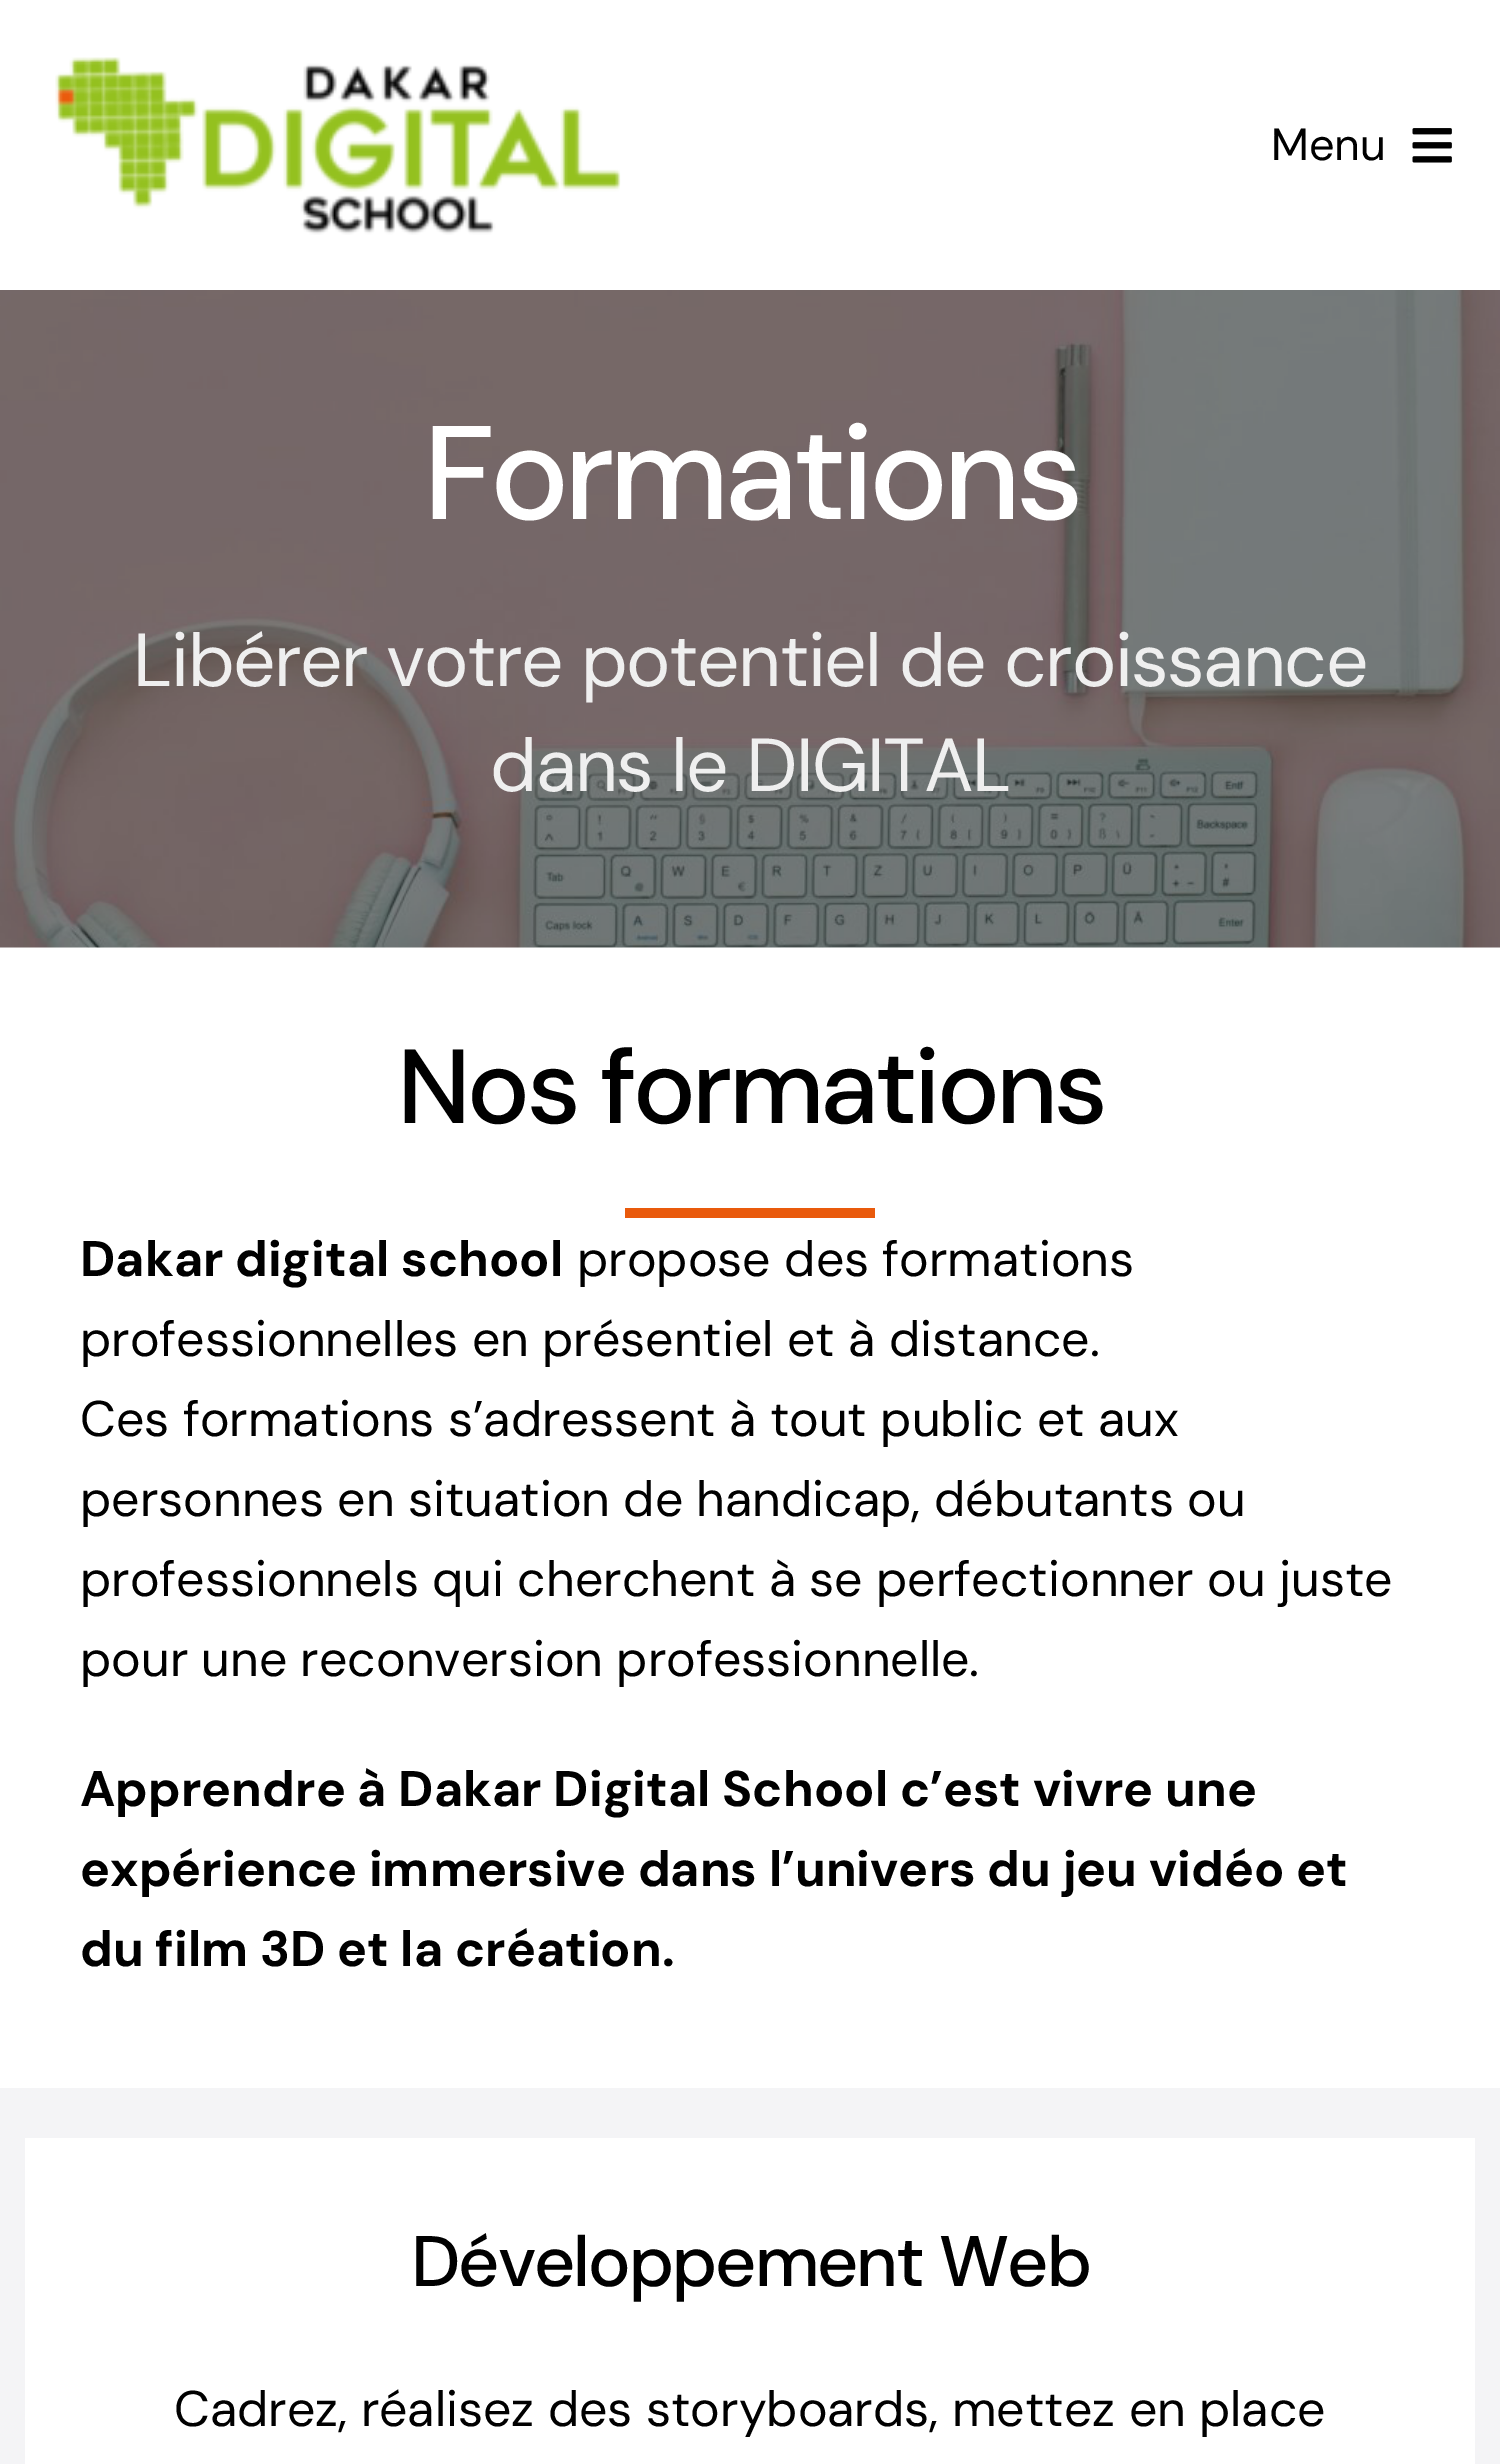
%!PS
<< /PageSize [1500 2464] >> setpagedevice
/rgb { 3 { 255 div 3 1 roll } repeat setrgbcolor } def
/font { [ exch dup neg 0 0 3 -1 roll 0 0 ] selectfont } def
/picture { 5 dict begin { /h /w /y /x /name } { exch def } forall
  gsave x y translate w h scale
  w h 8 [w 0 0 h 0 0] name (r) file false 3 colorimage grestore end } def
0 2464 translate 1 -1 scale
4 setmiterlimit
255 255 255 rgb
0 0 1500 2464 rectfill
(img/1.rgb) 55 57 566 178 picture
(img/2.rgb) 1412 128 40 35 picture
(img/3.rgb) 0 290 1500 658 picture
[
  [625 1208 250 10 233 90 12]
  [0 2088 1500 376 244 244 246]
  [25 2138 1450 326 255 255 255]
] { aload pop rgb rectfill } forall
/DMSans-Regular 45 font
0 0 0 rgb
1271 160 moveto (Menu) show
/DMSans-Medium 133 font
255 255 255 rgb
423 519 moveto -5.5 0 (Formations) ashow
/DMSans-Regular 75 font
239 239 239 rgb
133 686 moveto -1.5 0 (Libérer votre potentiel de croissance) ashow
490 791 moveto -1.5 0 (dans le DIGITAL) ashow
/DMSans-Medium 105.25 font
0 0 0 rgb
397 1123 moveto -3.75 0 (Nos formations) ashow
/DMSans-Bold 50 font
80 1276 moveto (Dakar digital school) show
/DMSans-Regular 50 font
[
  [(propose des formations) 577 1276]
  [(professionnelles en présentiel et à distance.) 80 1356]
  [(Ces formations s’adressent à tout public et aux) 80 1436]
  [(personnes en situation de handicap, débutants ou) 80 1516]
  [(professionnels qui cherchent à se perfectionner ou juste) 80 1596]
  [(pour une reconversion professionnelle.) 80 1676]
] { aload pop moveto show } forall
/DMSans-Bold 50 font
[
  [(Apprendre à Dakar Digital School c’est vivre une) 80 1806]
  [(expérience immersive dans l’univers du jeu vidéo et) 80 1886]
  [(du film 3D et la création.) 80 1966]
] { aload pop moveto show } forall
/DMSans-Medium 71.4 font
411 2286 moveto -2.1 0 (Développement Web) ashow
/DMSans-Regular 50 font
174 2426 moveto (Cadrez, réalisez des storyboards, mettez en place) show
showpage
